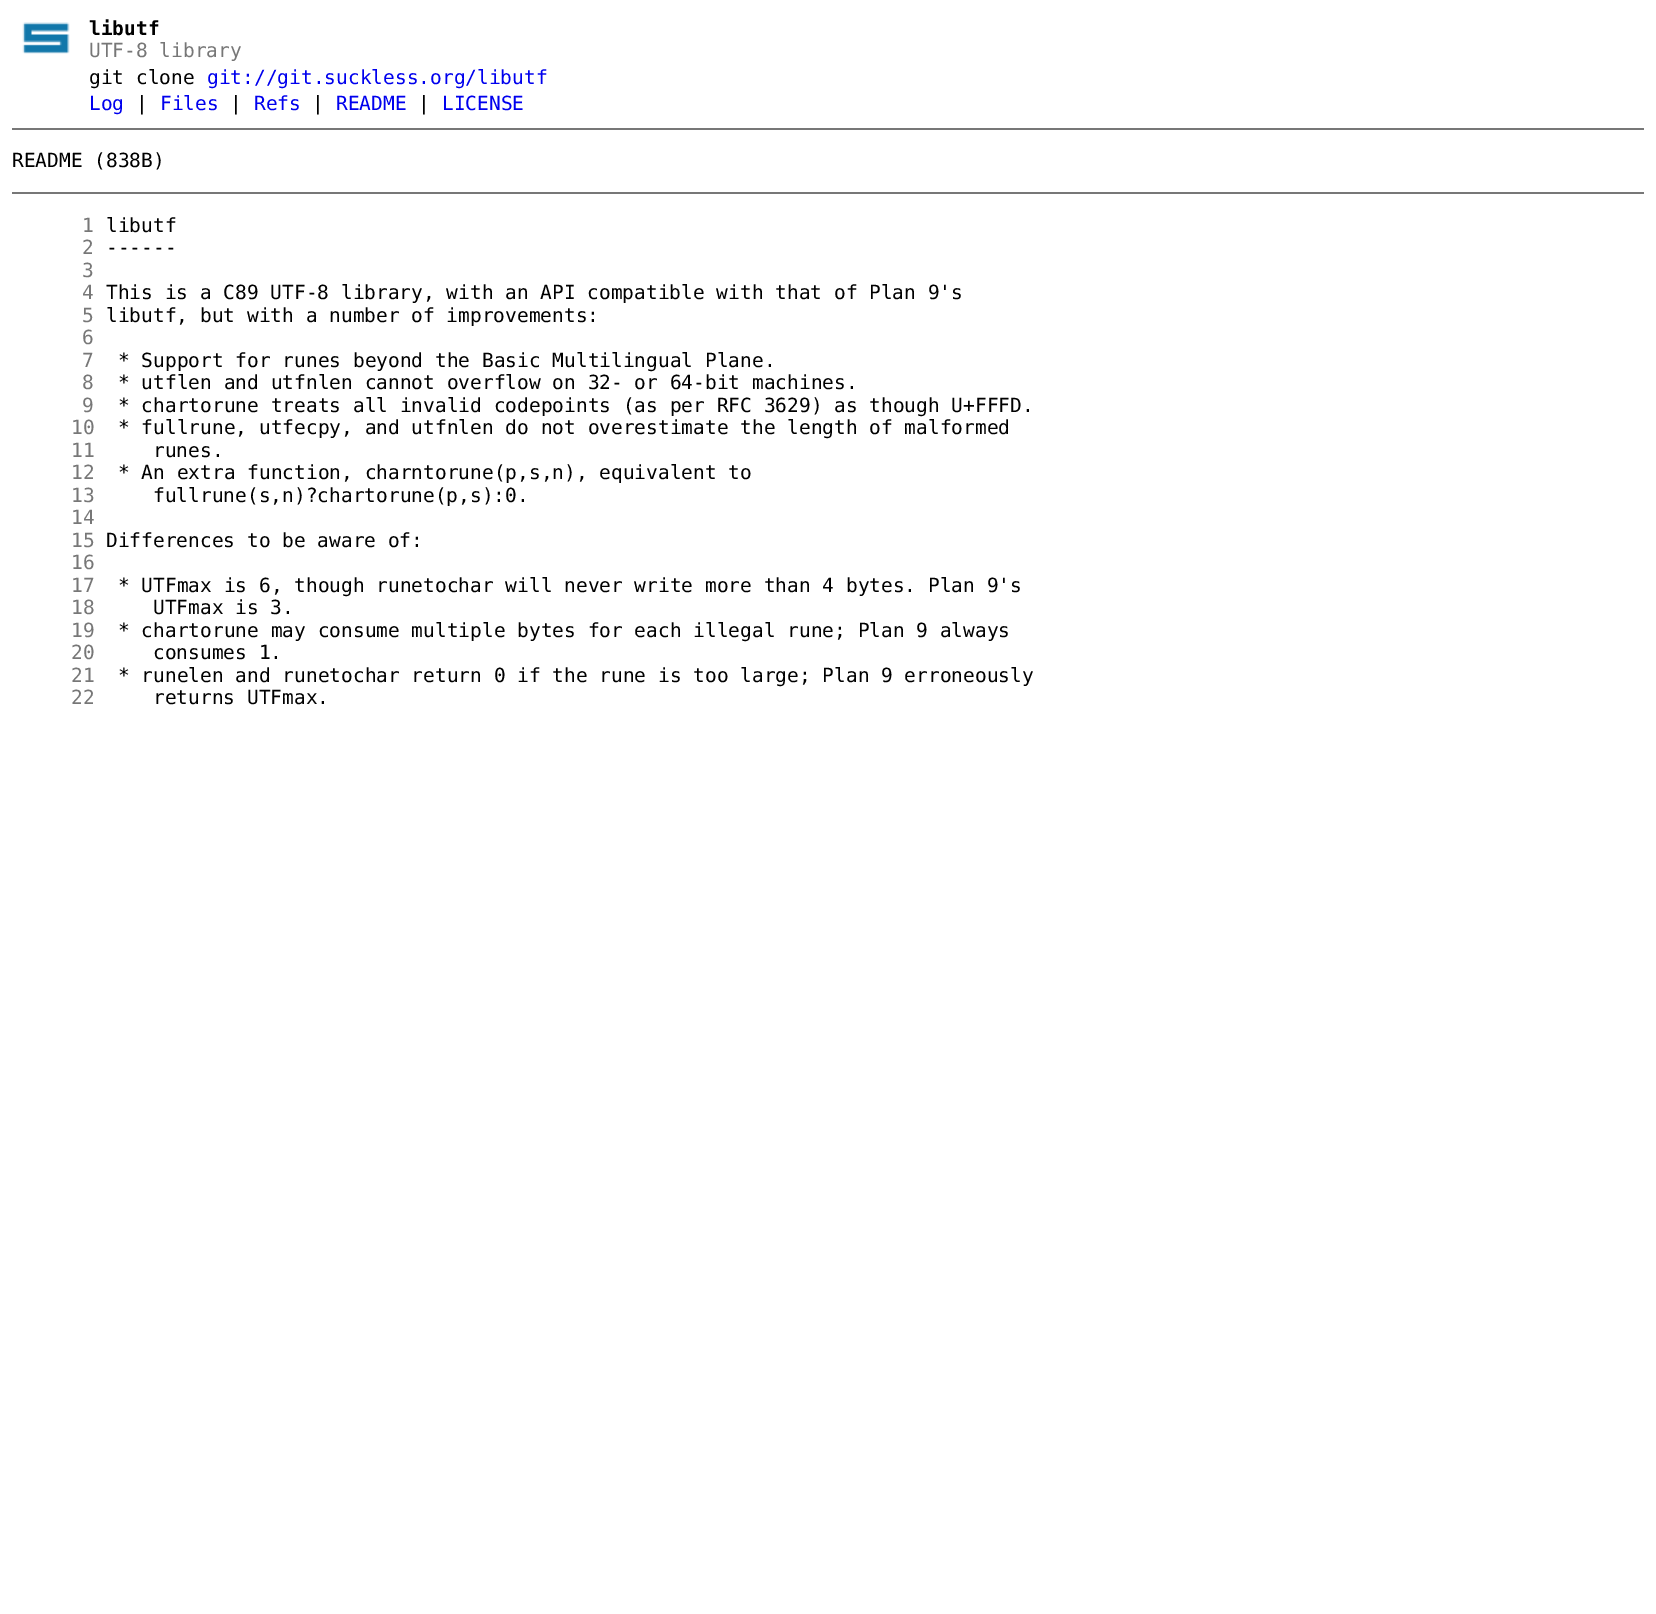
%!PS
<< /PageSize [1656 1614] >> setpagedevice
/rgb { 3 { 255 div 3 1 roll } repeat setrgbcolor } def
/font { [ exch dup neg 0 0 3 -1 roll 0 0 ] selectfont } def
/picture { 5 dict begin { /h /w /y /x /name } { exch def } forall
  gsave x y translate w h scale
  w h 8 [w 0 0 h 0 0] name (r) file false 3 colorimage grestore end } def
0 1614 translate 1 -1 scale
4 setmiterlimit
255 255 255 rgb
0 0 1656 1614 rectfill
(img/1.rgb) 22 22 48 32 picture
119 119 119 rgb
12 128 1632 2 rectfill
12 192 1632 2 rectfill
/DejaVuSansMono-Bold 19.5 font
0 0 0 rgb
89 35 moveto (libutf) show
/DejaVuSansMono-Regular 19.5 font
119 119 119 rgb
89 57 moveto (UTF-8 library) show
0 0 0 rgb
89 84 moveto (git clone) show
0 0 238 rgb
207 84 moveto (git://git.suckless.org/libutf) show
89 110 moveto (Log) show
0 0 0 rgb
136 110 moveto (|) show
0 0 238 rgb
160 110 moveto (Files) show
0 0 0 rgb
230 110 moveto (|) show
0 0 238 rgb
254 110 moveto (Refs) show
0 0 0 rgb
312 110 moveto (|) show
0 0 238 rgb
336 110 moveto (README) show
0 0 0 rgb
418 110 moveto (|) show
0 0 238 rgb
442 110 moveto (LICENSE) show
0 0 0 rgb
12 167 moveto (README \(838B\)) show
119 119 119 rgb
82 232 moveto (1) show
0 0 0 rgb
106 232 moveto (libutf) show
119 119 119 rgb
82 254 moveto (2) show
0 0 0 rgb
106 254 moveto (------) show
119 119 119 rgb
82 277 moveto (3) show
82 299 moveto (4) show
0 0 0 rgb
106 299 moveto (This is a C89 UTF-8 library, with an API compatible with that of Plan 9's) show
119 119 119 rgb
82 322 moveto (5) show
0 0 0 rgb
106 322 moveto (libutf, but with a number of improvements:) show
119 119 119 rgb
82 344 moveto (6) show
82 367 moveto (7) show
0 0 0 rgb
118 367 moveto (* Support for runes beyond the Basic Multilingual Plane.) show
119 119 119 rgb
82 389 moveto (8) show
0 0 0 rgb
118 389 moveto (* utflen and utfnlen cannot overflow on 32- or 64-bit machines.) show
119 119 119 rgb
82 412 moveto (9) show
0 0 0 rgb
118 412 moveto (* chartorune treats all invalid codepoints \(as per RFC 3629\) as though U+FFFD.) show
119 119 119 rgb
71 434 moveto (10) show
0 0 0 rgb
118 434 moveto (* fullrune, utfecpy, and utfnlen do not overestimate the length of malformed) show
119 119 119 rgb
71 457 moveto (11) show
0 0 0 rgb
153 457 moveto (runes.) show
119 119 119 rgb
71 479 moveto (12) show
0 0 0 rgb
118 479 moveto (* An extra function, charntorune\(p,s,n\), equivalent to) show
119 119 119 rgb
71 502 moveto (13) show
0 0 0 rgb
153 502 moveto (fullrune\(s,n\)?chartorune\(p,s\):0.) show
119 119 119 rgb
71 524 moveto (14) show
71 547 moveto (15) show
0 0 0 rgb
106 547 moveto (Differences to be aware of:) show
119 119 119 rgb
71 569 moveto (16) show
71 592 moveto (17) show
0 0 0 rgb
118 592 moveto (* UTFmax is 6, though runetochar will never write more than 4 bytes. Plan 9's) show
119 119 119 rgb
71 614 moveto (18) show
0 0 0 rgb
153 614 moveto (UTFmax is 3.) show
119 119 119 rgb
71 637 moveto (19) show
0 0 0 rgb
118 637 moveto (* chartorune may consume multiple bytes for each illegal rune; Plan 9 always) show
119 119 119 rgb
71 659 moveto (20) show
0 0 0 rgb
153 659 moveto (consumes 1.) show
119 119 119 rgb
71 682 moveto (21) show
0 0 0 rgb
118 682 moveto (* runelen and runetochar return 0 if the rune is too large; Plan 9 erroneously) show
119 119 119 rgb
71 704 moveto (22) show
0 0 0 rgb
153 704 moveto (returns UTFmax.) show
showpage
